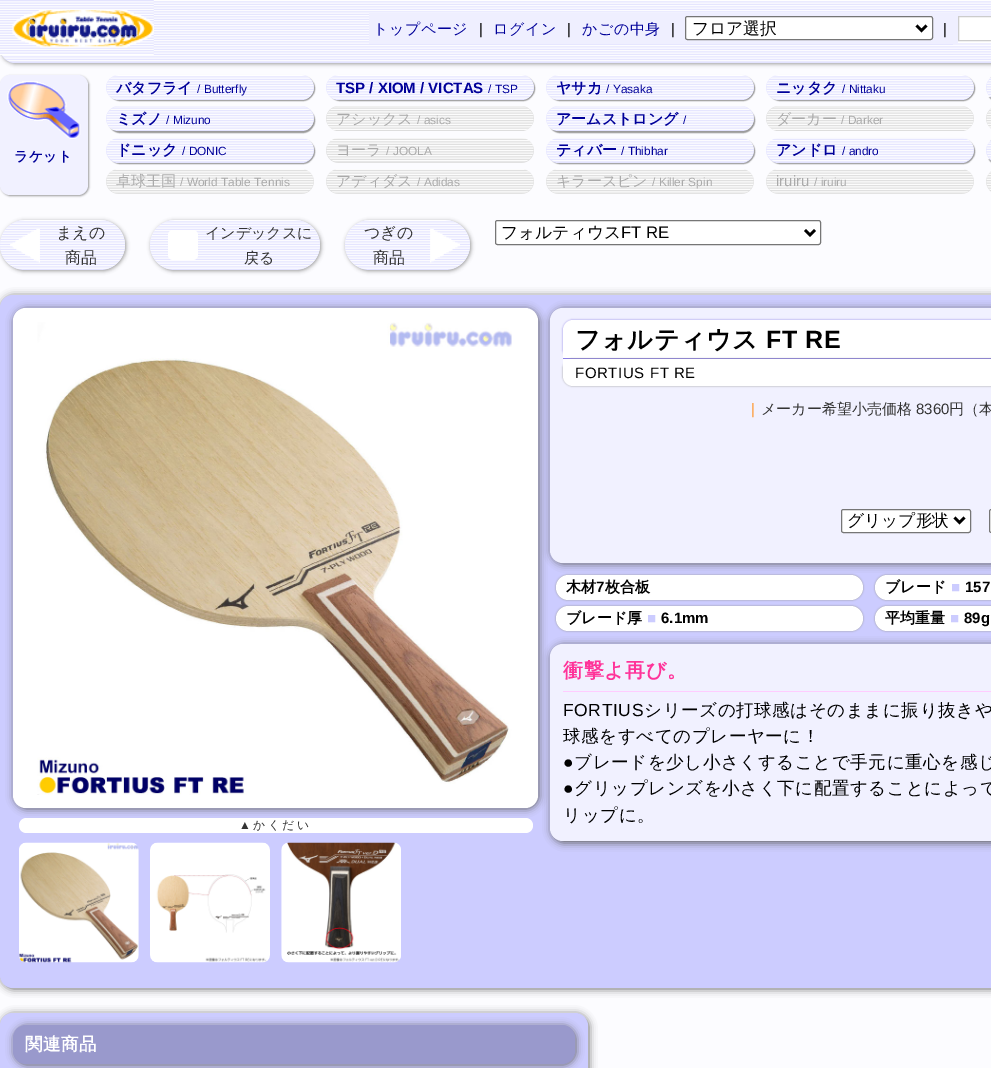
%!PS
<< /PageSize [991 1068] /PageUsesTransparency true >> setpagedevice
/rgb { 3 { 255 div 3 1 roll } repeat setrgbcolor } def
/font { [ exch dup neg 0 0 3 -1 roll 0 0 ] selectfont } def
/alpha { dup .setfillconstantalpha .setstrokeconstantalpha } def
/roundrect { 5 dict begin { /r /h /w /y /x } { exch def } forall
  x r add y moveto x w add y 2 copy h add r arct x w add y h add x 1 index r arct
  x y h add x y r arct x y 2 copy exch w add exch r arct closepath end } def
/shadow { 12 dict begin { /a /b /q /h /w /y /x } { exch def } forall gsave /was 0 def
  9 -2 -9 { dup b mul 4 div /e exch def 1 sub .425 mul 2.718 exch exp 1 add a .99 .min exch div /now exch def
    1 1 now sub 1 was sub div sub alpha /was now def
    w h .min e 2 mul add 0 gt { x e sub y e sub w e 2 mul add h e 2 mul add
      q e add b .6 mul add w h .min 2 div e add .min 0 .max roundrect fill } if } for grestore end } def
/picture { 5 dict begin { /h /w /y /x /name } { exch def } forall
  gsave x y translate w h scale
  w h 8 [w 0 0 h 0 0] name (r) file false 3 colorimage grestore end } def
0 .pushpdf14devicefilter
0 1068 translate 1 -1 scale
4 setmiterlimit
252 252 255 rgb
0 0 991 1068 rectfill
153 153 153 rgb
1 1 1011 63 15 2 1 shadow
227 227 255 rgb
0 0 moveto 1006 0 lineto 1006 48 lineto 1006 56.5 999.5 63 991 63 curveto 15 63 lineto 6.5 63 0 56.5 0 48 curveto closepath fill
(img/1.rgb) 2 0 989 62 picture
(img/2.rgb) 0 0 154 55 picture
(img/3.rgb) 12 10 142 38 picture
239 239 255 rgb
369 13 584 31 rectfill
255 255 255 rgb
685.5 16.5 247 23 2 roundrect gsave fill grestore
118 118 118 rgb
stroke
0 0 0 rgb
2.5 setlinewidth
916.5 25.5 moveto 921.5 30.5 lineto 926.5 25.5 lineto stroke
239 239 255 rgb
953 13 38 32 rectfill
255 255 255 rgb
958 17 33 26 rectfill
204 204 204 rgb
1 setlinewidth
958.5 16.5 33 24 rectstroke
153 153 153 rgb
1 76 88 120 10 1 1 shadow
241 241 255 rgb
0 75 88 120 10 roundrect fill
(img/4.rgb) 7 81 74 58 picture
153 153 153 rgb
108 76 207 25 12.5 0.5 1 shadow
227 227 255 rgb
106 75 208 25 12.5 roundrect fill
(img/5.rgb) 106 75 208 24 picture
153 153 153 rgb
328 76 207 25 12.5 0.5 1 shadow
227 227 255 rgb
326 75 208 25 12.5 roundrect fill
(img/6.rgb) 326 75 208 24 picture
153 153 153 rgb
548 76 207 25 12.5 0.5 1 shadow
227 227 255 rgb
546 75 208 25 12.5 roundrect fill
(img/6.rgb) 546 75 208 24 picture
153 153 153 rgb
768 76 207 25 12.5 0.5 1 shadow
227 227 255 rgb
766 75 208 25 12.5 roundrect fill
(img/6.rgb) 766 75 208 24 picture
153 153 153 rgb
988 76 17 25 12.5 0.5 1 shadow
227 227 255 rgb
986 75 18 25 12.5 roundrect fill
(img/7.rgb) 986 78 5 19 picture
153 153 153 rgb
108 108 207 25 12.5 0.5 1 shadow
227 227 255 rgb
106 106 208 25 12.5 roundrect fill
(img/8.rgb) 106 106 208 24 picture
221 221 221 rgb
326 106 208 25 12.5 roundrect fill
(img/9.rgb) 326 106 208 24 picture
153 153 153 rgb
548 108 207 25 12.5 0.5 1 shadow
227 227 255 rgb
546 106 208 25 12.5 roundrect fill
(img/8.rgb) 546 106 208 24 picture
221 221 221 rgb
766 106 208 25 12.5 roundrect fill
(img/9.rgb) 766 106 208 24 picture
986 106 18 25 12.5 roundrect fill
(img/10.rgb) 986 109 5 19 picture
153 153 153 rgb
108 139 207 25 12.5 0.5 1 shadow
227 227 255 rgb
106 138 208 25 12.5 roundrect fill
(img/11.rgb) 106 138 208 24 picture
221 221 221 rgb
326 138 208 25 12.5 roundrect fill
(img/12.rgb) 326 138 208 25 picture
153 153 153 rgb
548 139 207 25 12.5 0.5 1 shadow
227 227 255 rgb
546 138 208 25 12.5 roundrect fill
(img/13.rgb) 546 138 208 24 picture
153 153 153 rgb
768 139 207 25 12.5 0.5 1 shadow
227 227 255 rgb
766 138 208 25 12.5 roundrect fill
(img/13.rgb) 766 138 208 24 picture
153 153 153 rgb
988 139 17 25 12.5 0.5 1 shadow
227 227 255 rgb
986 138 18 25 12.5 roundrect fill
(img/14.rgb) 986 141 5 18 picture
221 221 221 rgb
106 169 208 25 12.5 roundrect fill
(img/15.rgb) 106 169 208 25 picture
326 169 208 25 12.5 roundrect fill
(img/15.rgb) 326 169 208 25 picture
546 169 208 25 12.5 roundrect fill
(img/15.rgb) 546 169 208 25 picture
766 169 208 25 12.5 roundrect fill
(img/15.rgb) 766 169 208 25 picture
986 169 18 25 12.5 roundrect fill
(img/16.rgb) 986 172 5 18 picture
153 153 153 rgb
1 221 125 50 25 2 1 shadow
227 227 255 rgb
0 220 125 50 25 roundrect fill
(img/17.rgb) 0 220 125 49 picture
(img/18.rgb) 10 229 30 34 picture
153 153 153 rgb
151 221 170 50 25 2 1 shadow
227 227 255 rgb
150 220 170 50 25 roundrect fill
(img/19.rgb) 150 220 170 49 picture
255 255 255 rgb
168 230 30 30 5 roundrect fill
153 153 153 rgb
346 221 125 50 25 2 1 shadow
227 227 255 rgb
345 220 125 50 25 roundrect fill
(img/17.rgb) 345 220 125 49 picture
(img/20.rgb) 430 229 30 34 picture
255 255 255 rgb
495.5 220.5 325 24 2 roundrect gsave fill grestore
118 118 118 rgb
stroke
0 0 0 rgb
2.5 setlinewidth
805 230 moveto 810 235 lineto 815 230 lineto stroke
102 102 102 rgb
1 296 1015 693 13 4 1 shadow
204 204 255 rgb
0 295 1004 693 13 roundrect fill
102 102 102 rgb
551 309 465 255 13 4 1 shadow
14 309 525 500 13 4 1 shadow
241 241 255 rgb
550 308 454 255 13 roundrect fill
138 126 229 rgb
563 320 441 39 10 1 1 shadow
255 255 255 rgb
573 320 moveto 991 320 lineto 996.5 320 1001 324.5 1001 330 curveto 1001 359 lineto 563 359 lineto 563 330 lineto 563 324.5 567.5 320 573 320 curveto closepath fill
138 126 229 rgb
563 358 428 1 rectfill
153 153 153 rgb
563 359 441 27 10 1 1 shadow
255 255 255 rgb
563 359 moveto 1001 359 lineto 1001 376 lineto 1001 381.5 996.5 386 991 386 curveto 573 386 lineto 567.5 386 563 381.5 563 376 curveto closepath fill
841.5 509.5 129 23 2 roundrect gsave fill grestore
118 118 118 rgb
1 setlinewidth
stroke
0 0 0 rgb
2.5 setlinewidth
954.5 517.5 moveto 959.5 522.5 lineto 964.5 517.5 lineto stroke
255 255 255 rgb
989.5 509.5 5 23 2 roundrect gsave fill grestore
118 118 118 rgb
1 setlinewidth
stroke
153 153 153 rgb
556 575 307 25 12.5 1 1 shadow
255 255 255 rgb
556 575 307 25 12.5 roundrect fill
153 153 153 rgb
875 575 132 25 12.5 1 1 shadow
255 255 255 rgb
875 575 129 25 12.5 roundrect fill
153 153 153 rgb
556 606 307 25 12.5 1 1 shadow
255 255 255 rgb
556 606 307 25 12.5 roundrect fill
153 153 153 rgb
875 606 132 25 12.5 1 1 shadow
255 255 255 rgb
875 606 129 25 12.5 roundrect fill
102 102 102 rgb
551 645 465 198 13 4 1 shadow
241 241 255 rgb
550 644 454 197 13 roundrect fill
255 204 255 rgb
563 691 428 1 rectfill
255 255 255 rgb
13 308 525 500 13 roundrect fill
(img/21.rgb) 37 322 475 473 picture
19 818 514 15 7.5 roundrect fill
(img/22.rgb) 19 842 120 121 picture
(img/23.rgb) 150 842 120 121 picture
(img/24.rgb) 281 842 120 121 picture
102 102 102 rgb
1 1014 588 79 13 4 1 shadow
204 204 255 rgb
0 1013 588 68 13 roundrect fill
102 102 102 rgb
14 1026 562 39 13 4 1 shadow
153 153 204 rgb
13 1025 562 39 13 roundrect fill
/WenQuanYiZenHei-Medium 15 font
0 0 153 rgb
373 34 moveto 0.6 0 (トップページ) ashow
/LiberationSans-Regular 15 font
0 0 0 rgb
479 34 moveto 0.6 0 (|) ashow
/WenQuanYiZenHei-Medium 15 font
0 0 153 rgb
493 34 moveto 0.6 0 (ログイン) ashow
/LiberationSans-Regular 15 font
0 0 0 rgb
567 34 moveto 0.6 0 (|) ashow
/WenQuanYiZenHei-Medium 15 font
0 0 153 rgb
582 34 moveto 0.6 0 (かごの中身) ashow
/LiberationSans-Regular 15 font
0 0 0 rgb
671 34 moveto 0.6 0 (|) ashow
/WenQuanYiZenHei-Medium 16.75 font
692 34 moveto (フロア選択) show
/LiberationSans-Regular 15 font
943 34 moveto 0.6 0 (|) ashow
/WenQuanYiZenHei-Bold 13.75 font
0 0 153 rgb
14 161 moveto 0.6 0 (ラケット) ashow
/WenQuanYiZenHei-Bold 15 font
116 93 moveto (バタフライ) show
/LiberationSans-Regular 11.9 font
197 93 moveto (/ Butterfly) show
/LiberationSans-Bold 15 font
336 93 moveto (TSP / XIOM / VICTAS) show
/LiberationSans-Regular 11.9 font
488 93 moveto (/ TSP) show
/WenQuanYiZenHei-Bold 15 font
556 93 moveto (ヤサカ) show
/LiberationSans-Regular 11.9 font
606 93 moveto (/ Yasaka) show
/WenQuanYiZenHei-Bold 15 font
776 93 moveto (ニッタク) show
/LiberationSans-Regular 11.9 font
842 93 moveto (/ Nittaku) show
/WenQuanYiZenHei-Bold 15 font
116 124 moveto (ミズノ) show
/LiberationSans-Regular 11.9 font
166 124 moveto (/ Mizuno) show
/WenQuanYiZenHei-Medium 15 font
170 170 170 rgb
336 124 moveto (アシックス) show
/LiberationSans-Regular 11.9 font
417 124 moveto (/ asics) show
/WenQuanYiZenHei-Bold 15 font
0 0 153 rgb
556 124 moveto (アームストロング) show
/LiberationSans-Regular 11.9 font
683 124 moveto (/) show
/WenQuanYiZenHei-Medium 15 font
170 170 170 rgb
776 124 moveto (ダーカー) show
/LiberationSans-Regular 11.9 font
841 124 moveto (/ Darker) show
/WenQuanYiZenHei-Bold 15 font
0 0 153 rgb
116 155 moveto (ドニック) show
/LiberationSans-Regular 11.9 font
182 155 moveto (/ DONIC) show
/WenQuanYiZenHei-Medium 15 font
170 170 170 rgb
336 155 moveto (ヨーラ) show
/LiberationSans-Regular 11.9 font
386 155 moveto (/ JOOLA) show
/WenQuanYiZenHei-Bold 15 font
0 0 153 rgb
556 155 moveto (ティバー) show
/LiberationSans-Regular 11.9 font
621 155 moveto (/ Thibhar) show
/WenQuanYiZenHei-Bold 15 font
776 155 moveto (アンドロ) show
/LiberationSans-Regular 11.9 font
842 155 moveto (/ andro) show
/WenQuanYiZenHei-Medium 15 font
170 170 170 rgb
116 186 moveto (卓球王国) show
/LiberationSans-Regular 11.9 font
180 186 moveto (/ World Table Tennis) show
/WenQuanYiZenHei-Medium 15 font
336 186 moveto (アディダス) show
/LiberationSans-Regular 11.9 font
417 186 moveto (/ Adidas) show
/WenQuanYiZenHei-Medium 15 font
556 186 moveto (キラースピン) show
/LiberationSans-Regular 11.9 font
652 186 moveto (/ Killer Spin) show
/LiberationSans-Regular 15 font
776 186 moveto (iruiru) show
/LiberationSans-Regular 11.9 font
814 186 moveto (/ iruiru) show
/WenQuanYiZenHei-Medium 16 font
51 51 51 rgb
56 238 moveto (まえの) show
65 263 moveto (商品) show
/WenQuanYiZenHei-Medium 15 font
205 238 moveto (インデックスに) show
244 263 moveto (戻る) show
/WenQuanYiZenHei-Medium 16 font
364 238 moveto (つぎの) show
373 263 moveto (商品) show
/WenQuanYiZenHei-Medium 16.75 font
0 0 0 rgb
501 238 moveto (フォルティウス) show
/LiberationSans-Regular 16.75 font
621 238 moveto (FT RE) show
/WenQuanYiZenHei-Bold 25 font
575 348 moveto 0.6 0 (フォルティウス) ashow
/LiberationSans-Bold 25 font
766 348 moveto 0.6 0 (FT RE) ashow
/LiberationSans-Regular 15 font
575 378 moveto 0.6 0 (FORTIUS FT RE) ashow
255 153 51 rgb
751 414 moveto (|) show
/WenQuanYiZenHei-Medium 15 font
51 51 51 rgb
761 414 moveto (メーカー希望小売価格) show
/LiberationSans-Regular 15 font
916 414 moveto (8360) show
/WenQuanYiZenHei-Medium 15 font
949 414 moveto (円（本) show
/WenQuanYiZenHei-Medium 16.75 font
0 0 0 rgb
847 526 moveto (グリップ形状) show
/WenQuanYiZenHei-Bold 15 font
566 592 moveto (木材) show
/LiberationSans-Bold 15 font
596 592 moveto (7) show
/WenQuanYiZenHei-Bold 15 font
605 592 moveto (枚合板) show
885 592 moveto (ブレード) show
/LiberationSans-Bold 15 font
204 204 255 rgb
951 592 moveto (■) show
0 0 0 rgb
965 592 moveto (157) show
/WenQuanYiZenHei-Bold 15 font
566 623 moveto (ブレード厚) show
/LiberationSans-Bold 15 font
204 204 255 rgb
647 623 moveto (■) show
0 0 0 rgb
661 623 moveto (6.1mm) show
/WenQuanYiZenHei-Bold 15 font
885 623 moveto (平均重量) show
/LiberationSans-Bold 15 font
204 204 255 rgb
950 623 moveto (■) show
0 0 0 rgb
964 623 moveto (89g) show
/WenQuanYiZenHei-Bold 20 font
255 51 153 rgb
563 677 moveto 0.6 0 (衝撃よ再び。) ashow
/LiberationSans-Regular 17.5 font
0 0 0 rgb
563 716 moveto 0.6 0 (FORTIUS) ashow
/WenQuanYiZenHei-Medium 17.5 font
644 716 moveto 0.6 0 (シリーズの打球感はそのままに振り抜きや) ashow
563 742 moveto 0.6 0 (球感をすべてのプレーヤーに！) ashow
/LiberationSans-Regular 17.5 font
563 768 moveto 0.6 0 (●) ashow
/WenQuanYiZenHei-Medium 17.5 font
574 768 moveto 0.6 0 (ブレードを少し小さくすることで手元に重心を感じ) ashow
/LiberationSans-Regular 17.5 font
563 794 moveto 0.6 0 (●) ashow
/WenQuanYiZenHei-Medium 17.5 font
574 794 moveto 0.6 0 (グリップレンズを小さく下に配置することによって) ashow
563 821 moveto 0.6 0 (リップに。) ashow
/LiberationSans-Regular 11.9 font
51 51 51 rgb
239 829 moveto 2.5 0 (▲) ashow
/WenQuanYiZenHei-Medium 11.9 font
253 829 moveto 2.5 0 (かくだい) ashow
/WenQuanYiZenHei-Bold 17.5 font
255 255 255 rgb
25 1050 moveto 0.6 0 (関連商品) ashow
.poppdf14devicefilter showpage
